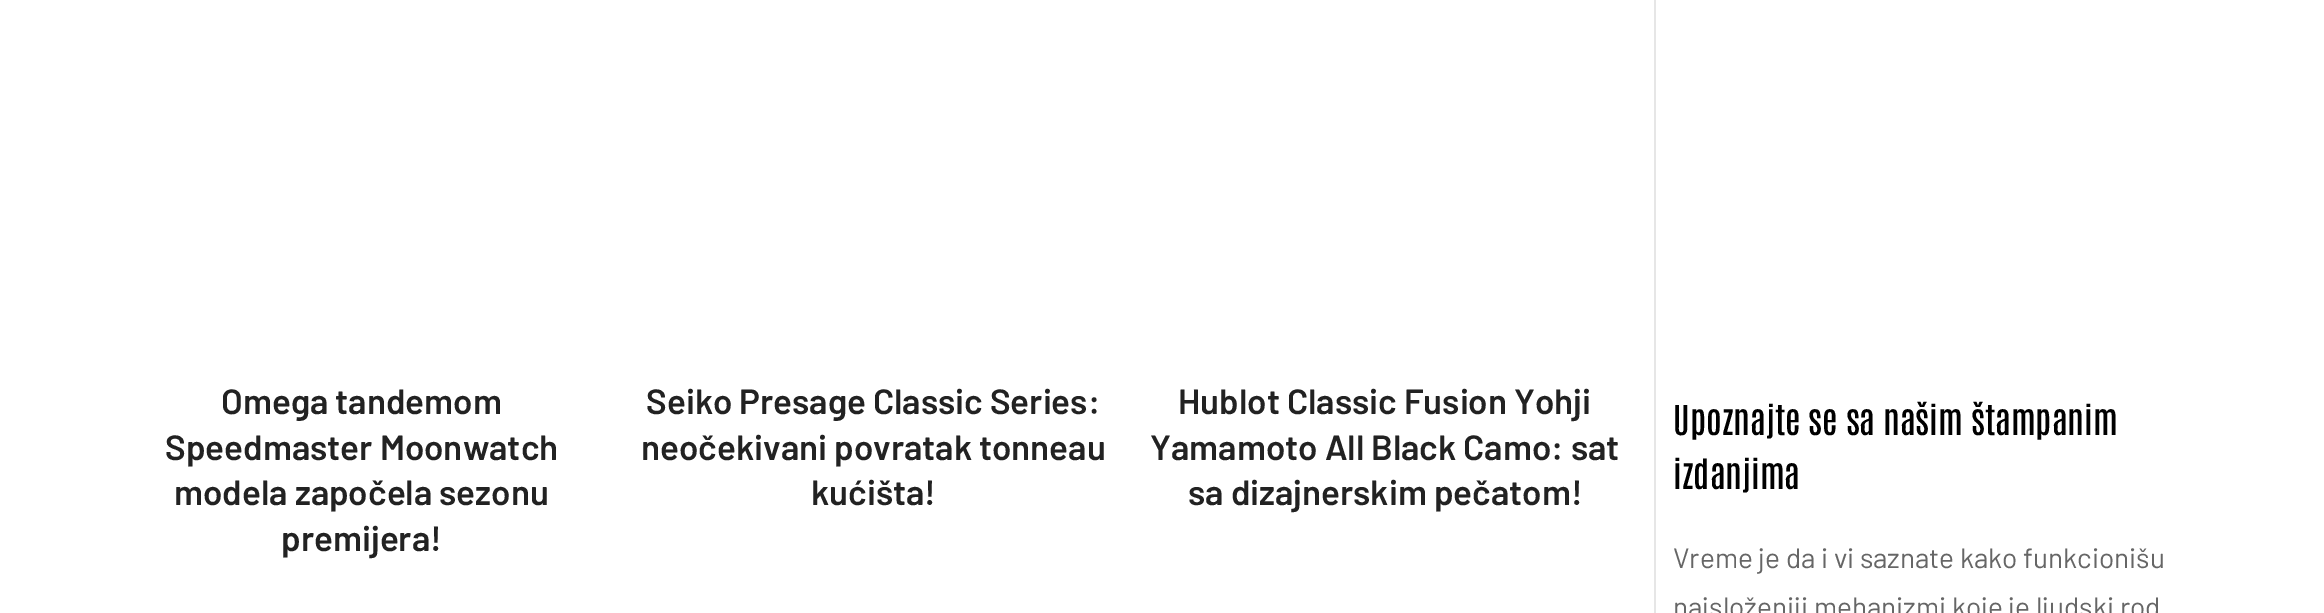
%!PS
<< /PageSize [2324 613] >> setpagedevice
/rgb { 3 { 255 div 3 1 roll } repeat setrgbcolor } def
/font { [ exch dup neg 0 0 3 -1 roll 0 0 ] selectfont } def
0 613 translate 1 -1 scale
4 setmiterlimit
255 255 255 rgb
0 0 2324 613 rectfill
230 230 230 rgb
1654 0 2 613 rectfill
/Barlow-SemiBold 35 font
34 34 34 rgb
[
  [(Omega tandemom) 221 414]
  [(Speedmaster Moonwatch) 165 460]
  [(modela započela sezonu) 174 505]
  [(premijera!) 281 551]
  [(Seiko Presage Classic Series:) 646 414]
  [(neočekivani povratak tonneau) 641 460]
  [(kućišta!) 811 505]
  [(Hublot Classic Fusion Yohji) 1178 414]
  [(Yamamoto All Black Camo: sat) 1150 460]
  [(sa dizajnerskim pečatom!) 1188 505]
] { aload pop moveto show } forall
/Antonio-Medium 35 font
0 0 0 rgb
1673 435 moveto (Upoznajte se sa našim štampanim) show
1673 489 moveto (izdanjima) show
/Barlow-Regular 28 font
102 102 102 rgb
1673 568 moveto (Vreme je da i vi saznate kako funkcionišu) show
1673 617 moveto (najsloženiji mehanizmi koje je ljudski rod) show
showpage
